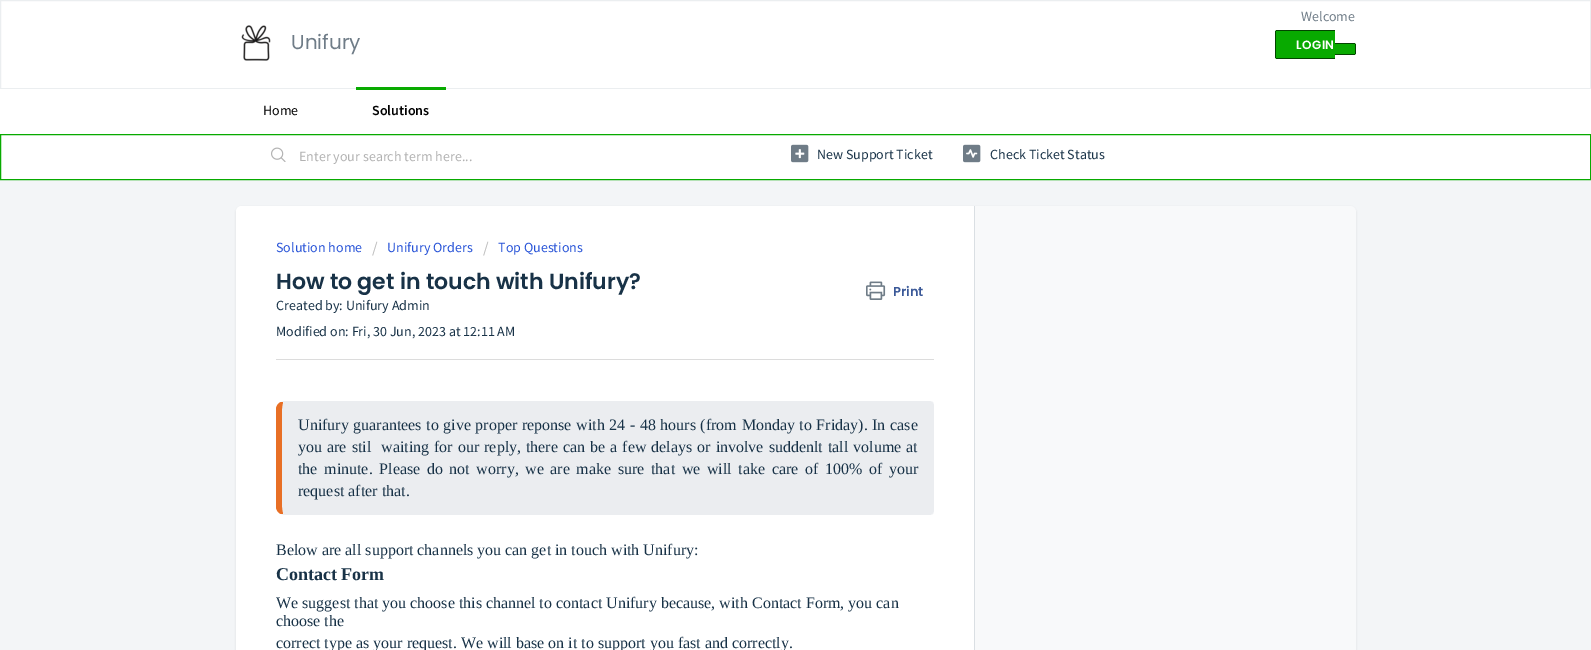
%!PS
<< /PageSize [1591 650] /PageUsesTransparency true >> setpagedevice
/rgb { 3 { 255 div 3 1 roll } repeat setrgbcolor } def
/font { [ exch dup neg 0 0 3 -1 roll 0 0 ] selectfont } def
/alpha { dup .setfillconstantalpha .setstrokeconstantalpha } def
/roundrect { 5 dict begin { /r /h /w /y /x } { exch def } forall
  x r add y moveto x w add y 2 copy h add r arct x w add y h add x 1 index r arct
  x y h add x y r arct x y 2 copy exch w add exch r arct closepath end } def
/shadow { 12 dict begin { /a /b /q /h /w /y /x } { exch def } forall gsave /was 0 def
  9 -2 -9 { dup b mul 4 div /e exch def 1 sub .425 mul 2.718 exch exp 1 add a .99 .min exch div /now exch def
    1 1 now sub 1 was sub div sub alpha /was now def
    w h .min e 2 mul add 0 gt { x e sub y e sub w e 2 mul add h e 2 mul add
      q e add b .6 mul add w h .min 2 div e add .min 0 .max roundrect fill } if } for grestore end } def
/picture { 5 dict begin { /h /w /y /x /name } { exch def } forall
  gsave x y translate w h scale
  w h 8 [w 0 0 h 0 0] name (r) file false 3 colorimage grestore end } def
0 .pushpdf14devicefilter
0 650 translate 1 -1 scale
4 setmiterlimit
243 245 247 rgb
0 0 1591 650 rectfill
255 255 255 rgb
0.5 0.5 moveto 1590.5 0.5 lineto 1590.5 88.5 lineto 0.5 88.5 lineto closepath gsave fill grestore
235 238 240 rgb
stroke
(img/1.rgb) 241 25 30 36 picture
8 170 0 rgb
1277 30 moveto 1335 30 lineto 1335 59 lineto 1277 59 lineto 1276 59 1275 58 1275 57 curveto 1275 32 lineto 1275 31 1276 30 1277 30 curveto closepath fill
[
  [1276 30 59 1 3 68 0]
  [1276 58 59 1 3 68 0]
  [1275 31 1 27 3 68 0]
] { aload pop rgb rectfill } forall
8 170 0 rgb
1335 43 moveto 1354 43 lineto 1355 43 1356 44 1356 45 curveto 1356 53 lineto 1356 54 1355 55 1354 55 curveto 1335 55 lineto closepath fill
[
  [1335 43 20 1 3 68 0]
  [1355 44 1 10 3 68 0]
  [1335 54 20 1 3 68 0]
  [0 89 1591 45 255 255 255]
  [356 87 90 3 8 170 0]
] { aload pop rgb rectfill } forall
255 255 255 rgb
0.5 134.5 moveto 1590.5 134.5 lineto 1590.5 179.5 lineto 0.5 179.5 lineto closepath gsave fill grestore
8 170 0 rgb
stroke
(img/2.rgb) 271 147 15 15 picture
(img/3.rgb) 791 144 18 19 picture
(img/4.rgb) 963 144 18 19 picture
63 63 68 rgb
236 207 1120 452 6 1 0.15 shadow
248 249 250 rgb
236 206 1120 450 6 roundrect fill
255 255 255 rgb
242 206 moveto 975 206 lineto 975 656 lineto 242 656 lineto 238.5 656 236 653.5 236 650 curveto 236 212 lineto 236 208.5 238.5 206 242 206 curveto closepath fill
218 223 227 rgb
974 206 1 444 rectfill
(img/5.rgb) 866 281 20 19 picture
220 220 220 rgb
276 359 658 1 rectfill
235 237 240 rgb
284 402 moveto 930 402 lineto 932 402 933 403 933 405 curveto 933 511 lineto 933 513 932 514 930 514 curveto 284 514 lineto 283 514 282 511 282 507 curveto 282 409 lineto 282 405 283 402 284 402 curveto closepath fill
284 401 moveto 281 402 lineto 283 402 lineto 930 402 lineto 932 403 lineto 933 402 lineto 930 401 lineto closepath fill
934 511 moveto 934 405 lineto 933 402 lineto 932 403 lineto 933 405 lineto 933 511 lineto 932 513 lineto 933 514 lineto closepath fill
284 515 moveto 930 515 lineto 931 515 932 514 933 514 curveto 932 513 lineto 930 514 lineto 283 514 lineto 281 514 lineto closepath fill
232 111 37 rgb
276 409 moveto 276 507 lineto 276 510 278 513 281 514 curveto 283 514 lineto 283 513 282 510 282 507 curveto 282 409 lineto 282 406 283 403 283 402 curveto 281 402 lineto 278 403 276 406 276 409 curveto closepath fill
/Poppins-Regular 20 font
111 124 135 rgb
291 49 moveto (Unifury) show
/SourceSansPro-Regular 14 font
1301 21 moveto (Welcome) show
/Poppins-SemiBold 12 font
255 255 255 rgb
1296 49 moveto 0.5 0 (LOGIN) ashow
/SourceSansPro-Regular 14 font
0 0 0 rgb
263 115 moveto (Home) show
/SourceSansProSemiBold-SemiBold 14 font
372 115 moveto (Solutions) show
/SourceSansPro-Regular 14 font
178 178 178 rgb
299 161 moveto (Enter your search term here...) show
24 50 71 rgb
817 159 moveto (New Support Ticket) show
990 159 moveto (Check Ticket Status) show
39 83 215 rgb
276 252 moveto (Solution home) show
/SourceSansPro-Regular 16 font
187 187 187 rgb
372 253 moveto (/) show
/SourceSansPro-Regular 14 font
39 83 215 rgb
387 252 moveto (Unifury Orders) show
/SourceSansPro-Regular 16 font
187 187 187 rgb
483 253 moveto (/) show
/SourceSansPro-Regular 14 font
39 83 215 rgb
498 252 moveto (Top Questions) show
/Poppins-SemiBold 22 font
24 50 71 rgb
276 289 moveto (How to get in touch with Unifury?) show
/Poppins-SemiBold 13 font
59 89 152 rgb
893 296 moveto (Print) show
/SourceSansPro-Regular 14 font
24 50 71 rgb
276 310 moveto (Created by: Unifury Admin) show
276 336 moveto (Modified on: Fri, 30 Jun, 2023 at 12:11 AM) show
/LiberationSerif-Regular 16 font
298 430 moveto 0.6 0 32 (Unifury guarantees to give proper reponse with 24 - 48 hours \(from Monday to Friday\). In case) widthshow
298 452 moveto 1 0 32 (you are stil  waiting for our reply, there can be a few delays or involve suddenlt tall volume at) widthshow
298 474 moveto 2.6 0 32 (the minute. Please do not worry, we are make sure that we will take care of 100% of your) widthshow
298 496 moveto (request after that.) show
276 555 moveto (Below are all support channels you can get in touch with Unifury:) show
/LiberationSerif-Bold 18 font
276 580 moveto (Contact Form) show
/LiberationSerif-Regular 16 font
[
  [(We suggest that you choose this channel to contact Unifury because, with Contact Form, you can) 276 608]
  [(choose the) 276 626]
  [(correct type as your request. We will base on it to support you fast and correctly.) 276 648]
] { aload pop moveto show } forall
.poppdf14devicefilter showpage
